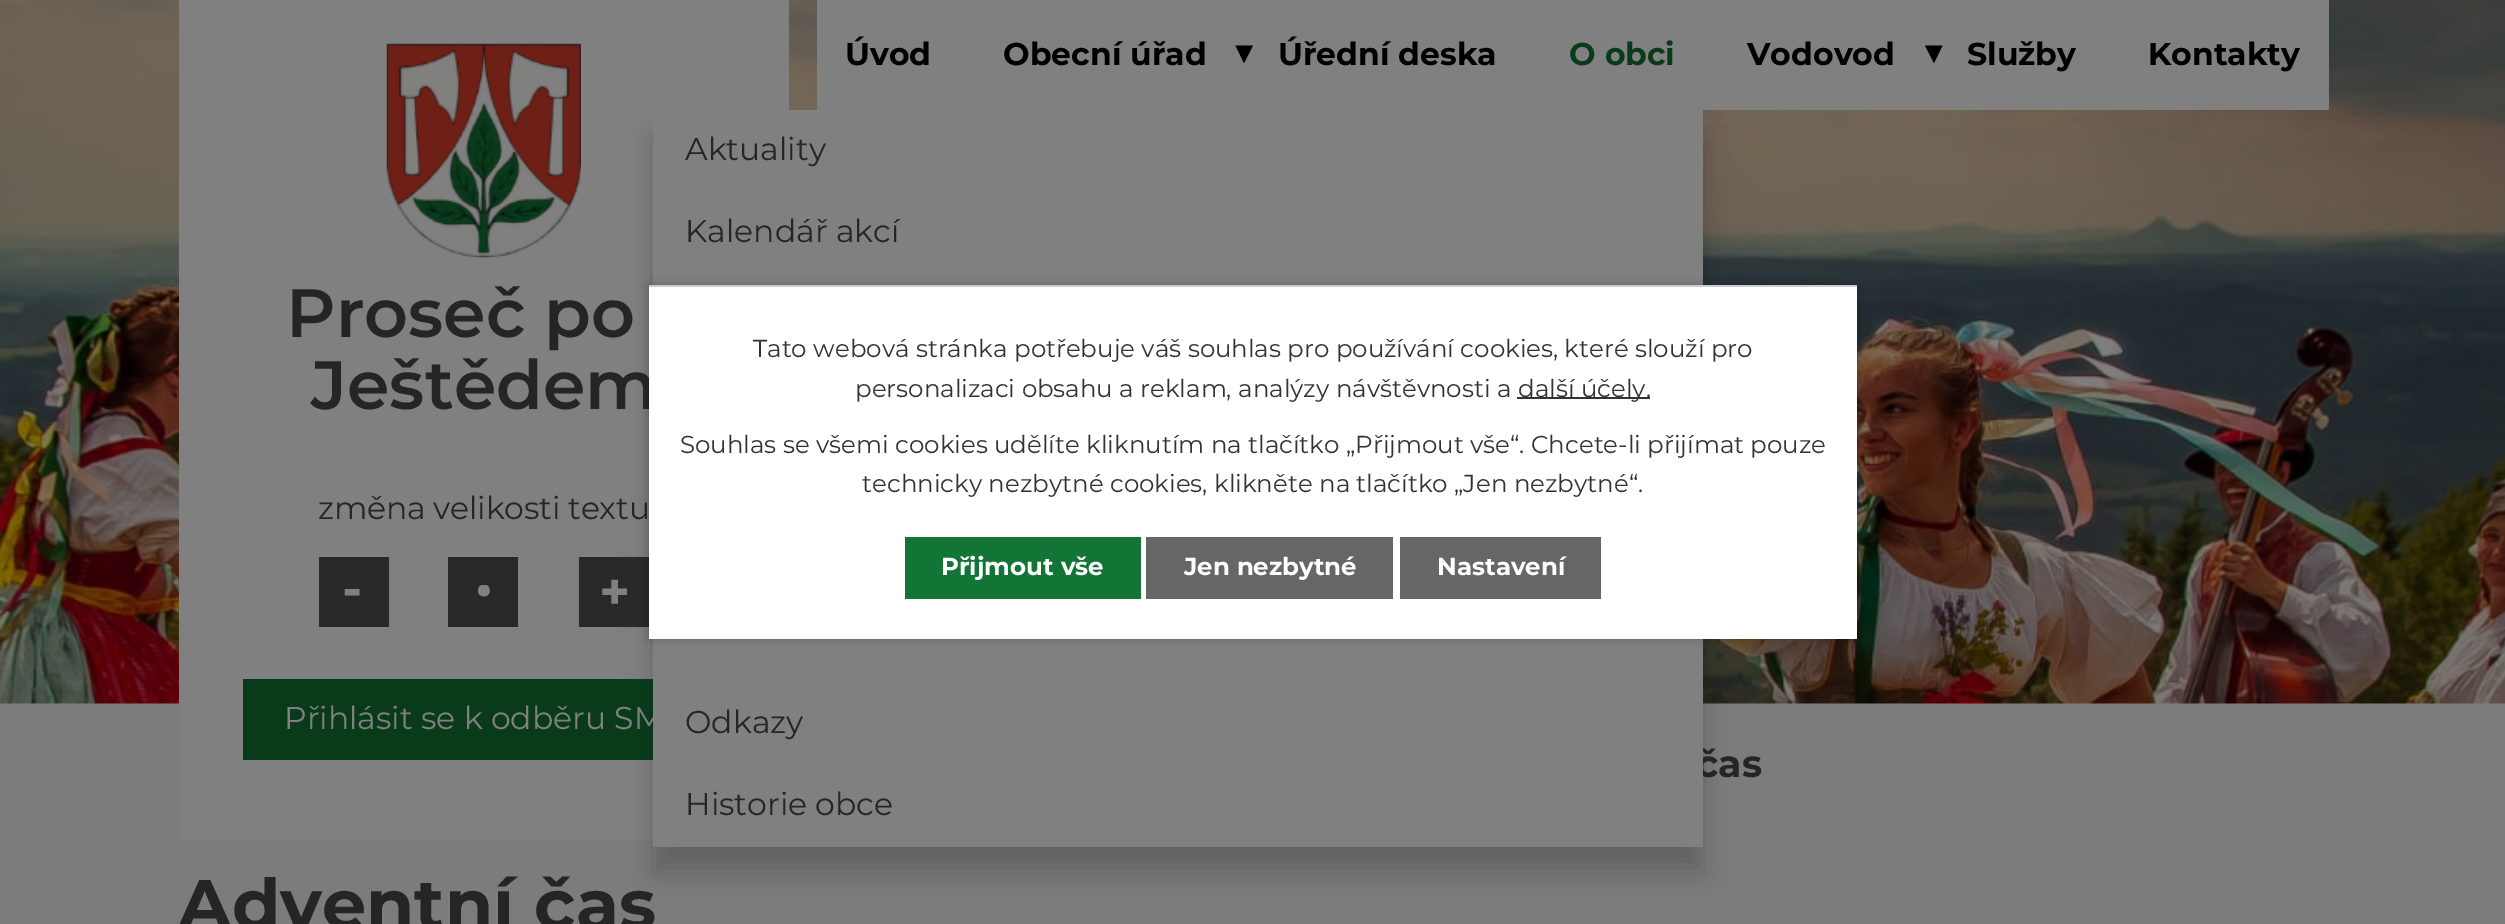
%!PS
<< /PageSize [2505 924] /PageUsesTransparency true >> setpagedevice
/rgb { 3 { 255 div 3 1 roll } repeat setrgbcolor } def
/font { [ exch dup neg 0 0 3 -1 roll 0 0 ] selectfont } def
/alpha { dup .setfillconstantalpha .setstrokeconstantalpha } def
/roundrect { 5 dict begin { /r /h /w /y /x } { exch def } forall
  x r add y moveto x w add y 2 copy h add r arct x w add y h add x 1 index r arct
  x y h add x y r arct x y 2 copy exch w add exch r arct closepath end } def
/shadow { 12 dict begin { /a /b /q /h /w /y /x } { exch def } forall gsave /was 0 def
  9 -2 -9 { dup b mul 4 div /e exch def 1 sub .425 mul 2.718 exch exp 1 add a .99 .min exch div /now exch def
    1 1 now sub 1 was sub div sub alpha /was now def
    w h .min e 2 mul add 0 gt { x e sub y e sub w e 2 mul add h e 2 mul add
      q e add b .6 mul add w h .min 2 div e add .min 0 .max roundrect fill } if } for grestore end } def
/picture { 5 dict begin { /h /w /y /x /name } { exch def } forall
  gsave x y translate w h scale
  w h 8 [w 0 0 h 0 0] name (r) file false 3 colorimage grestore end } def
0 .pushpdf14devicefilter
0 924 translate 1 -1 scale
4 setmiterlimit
128 128 128 rgb
0 0 2505 924 rectfill
(img/1.rgb) 0 0 2505 704 picture
124 124 124 rgb
0 704 2505 220 rectfill
128 128 128 rgb
179 0 610 840 rectfill
(img/2.rgb) 386 43 195 215 picture
41 41 41 rgb
319 557 70 70 rectfill
448 557 70 70 rectfill
(img/3.rgb) 478 585 12 12 picture
[
  [579 557 70 70 41 41 41]
  [243 679 410 81 9 59 27]
  [817 0 1512 110 128 128 128]
] { aload pop rgb rectfill } forall
0 0 0 rgb
653 137 1050 736 0 13 0.2 shadow
1235.5 45.5 moveto 1253 45.5 lineto 1244 63 lineto closepath fill
1925 45.5 moveto 1942.5 45.5 lineto 1934 63 lineto closepath fill
/Montserrat-SemiBold 68.25 font
37 37 37 rgb
286 337 moveto (Proseč po) show
311 409 moveto (Ještědem) show
/Montserrat-Regular 31.5 font
318 519 moveto -0.2 0 (změna velikosti textu) ashow
/Montserrat-Bold 52 font
128 128 128 rgb
342 607 moveto (-) show
599 610 moveto (+) show
/Montserrat-Regular 31.5 font
284 729 moveto (Přihlásit se k odběru SM) show
/Montserrat-Bold 31.5 font
0 0 0 rgb
845 65 moveto (Úvod) show
1278 65 moveto (Úřední deska) show
9 59 27 rgb
1569 65 moveto (O obci) show
0 0 0 rgb
[
  [(Obecní úřad) 1003 65]
  [(Vodovod) 1747 65]
  [(Služby) 1967 65]
  [(Kontakty) 2148 65]
] { aload pop moveto show } forall
/Montserrat-Bold 38 font
37 37 37 rgb
1696 777 moveto (čas) show
128 128 128 rgb
653 110 1050 737 rectfill
/Montserrat-Regular 31.5 font
37 37 37 rgb
[
  [(Historie obce) 685 815]
  [(Odkazy) 685 733]
  [(Kalendář akcí) 685 242]
  [(Aktuality) 685 160]
] { aload pop moveto show } forall
/Montserrat-Bold 70 font
178 929 moveto (Adventní čas) show
0 0 0 rgb
649 285 1208 354 0 4.5 0.2 shadow
255 255 255 rgb
649 287 1208 352 rectfill
204 204 204 rgb
649 285 1208 2 rectfill
/Montserrat-Regular 24.5 font
51 51 51 rgb
753 357 moveto (Tato webová stránka potřebuje váš souhlas pro používání cookies, které slouží pro) show
855 397 moveto (personalizaci obsahu a reklam, analýzy návštěvnosti a) show
1517 397 133 2 rectfill
[
  [(další účely.) 1518 397]
  [(Souhlas se všemi cookies udělíte kliknutím na tlačítko „Přijmout vše“. Chcete-li přijímat pouze) 680 453]
  [(technicky nezbytné cookies, klikněte na tlačítko „Jen nezbytné“.) 862 492]
] { aload pop moveto show } forall
18 117 53 rgb
905 537 236 62 rectfill
/Montserrat-Bold 24.5 font
255 255 255 rgb
941 575 moveto (Přijmout vše) show
102 102 102 rgb
1146 537 247 62 rectfill
255 255 255 rgb
1184 575 moveto (Jen nezbytné) show
102 102 102 rgb
1400 537 201 62 rectfill
255 255 255 rgb
1437 575 moveto (Nastavení) show
.poppdf14devicefilter showpage
